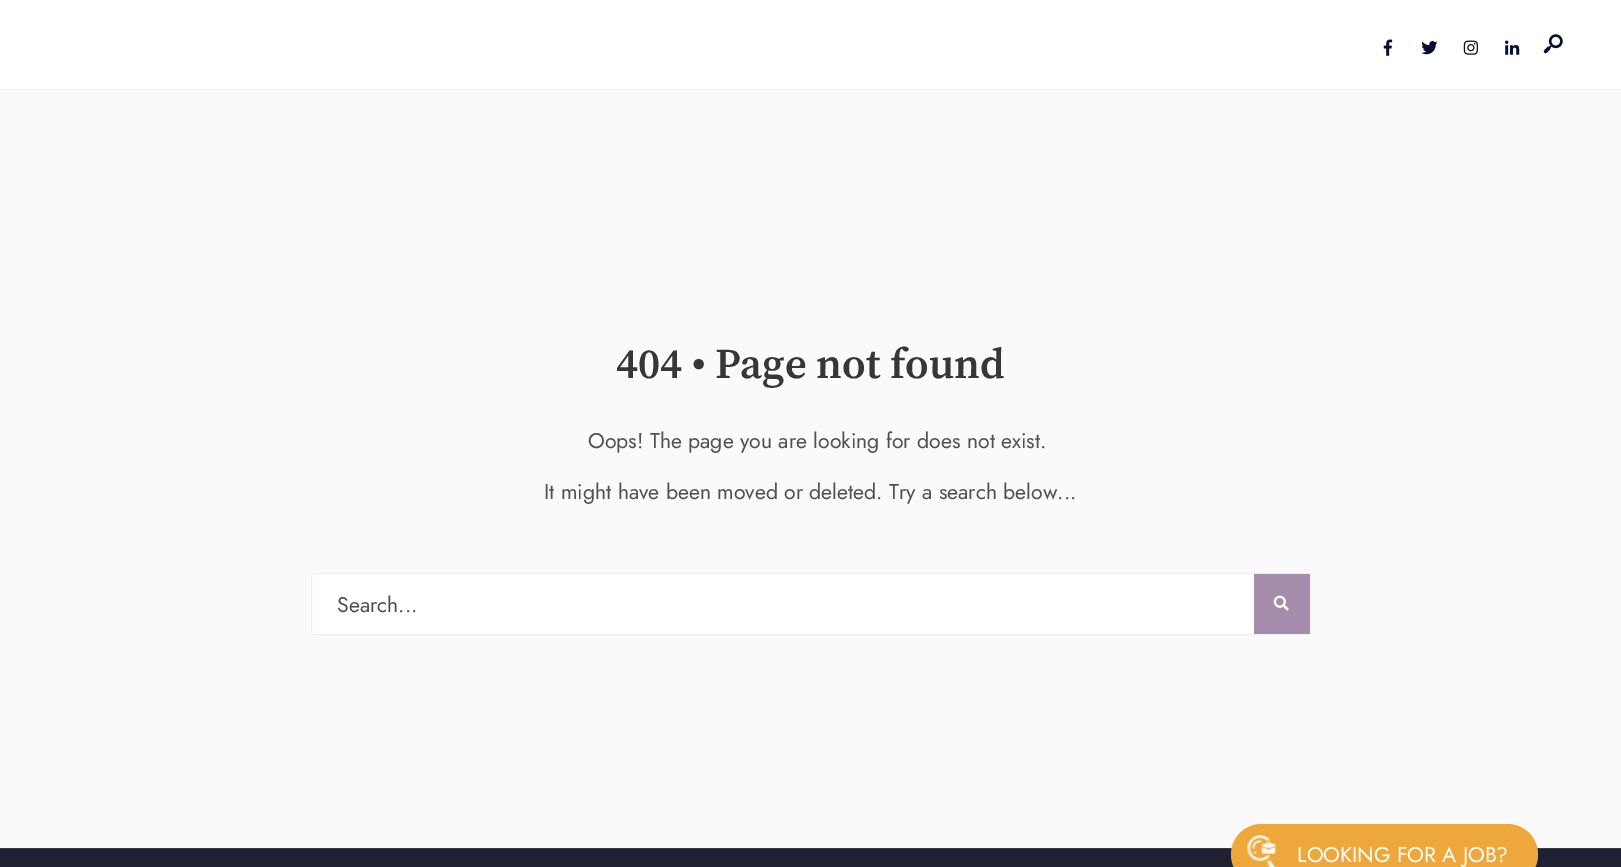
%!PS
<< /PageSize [1621 867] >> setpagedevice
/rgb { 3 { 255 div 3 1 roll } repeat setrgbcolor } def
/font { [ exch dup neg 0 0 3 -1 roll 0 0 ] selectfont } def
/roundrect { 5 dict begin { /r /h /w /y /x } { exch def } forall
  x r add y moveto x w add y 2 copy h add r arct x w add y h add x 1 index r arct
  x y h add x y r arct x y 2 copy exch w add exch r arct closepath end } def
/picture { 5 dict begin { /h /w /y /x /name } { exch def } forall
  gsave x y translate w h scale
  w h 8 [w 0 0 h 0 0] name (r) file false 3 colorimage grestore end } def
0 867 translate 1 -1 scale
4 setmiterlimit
250 250 250 rgb
0 0 1621 867 rectfill
255 255 255 rgb
0 0 1621 89 rectfill
239 239 239 rgb
0 89 1621 1 rectfill
(img/1.rgb) 1383 39 10 17 picture
(img/2.rgb) 1421 41 17 14 picture
(img/3.rgb) 1463 40 15 15 picture
(img/4.rgb) 1505 40 15 15 picture
(img/5.rgb) 1543 34 20 20 picture
255 255 255 rgb
311.5 573.5 999 61 3.5 roundrect gsave fill grestore
239 239 239 rgb
stroke
166 141 173 rgb
1254 574 56 60 rectfill
(img/6.rgb) 1273 595 16 16 picture
31 33 51 rgb
0 849 1621 18 rectfill
57 60 66 rgb
0 848 1621 1 rectfill
238 167 58 rgb
1231 824 307 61 30.5 roundrect fill
(img/7.rgb) 1247 835 30 32 picture
/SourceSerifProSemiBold-SemiBold 42.5 font
55 55 55 rgb
616 378 moveto (404 • Page not found) show
/Jost-Regular 21.25 font
81 81 81 rgb
[
  [(Oops! The page you are looking for does not exist.) 588 448]
  [(It might have been moved or deleted. Try a search below...) 544 499]
  [(Search...) 337 612]
] { aload pop moveto show } forall
255 255 255 rgb
1297 862 moveto (LOOKING FOR A JOB?) show
showpage
